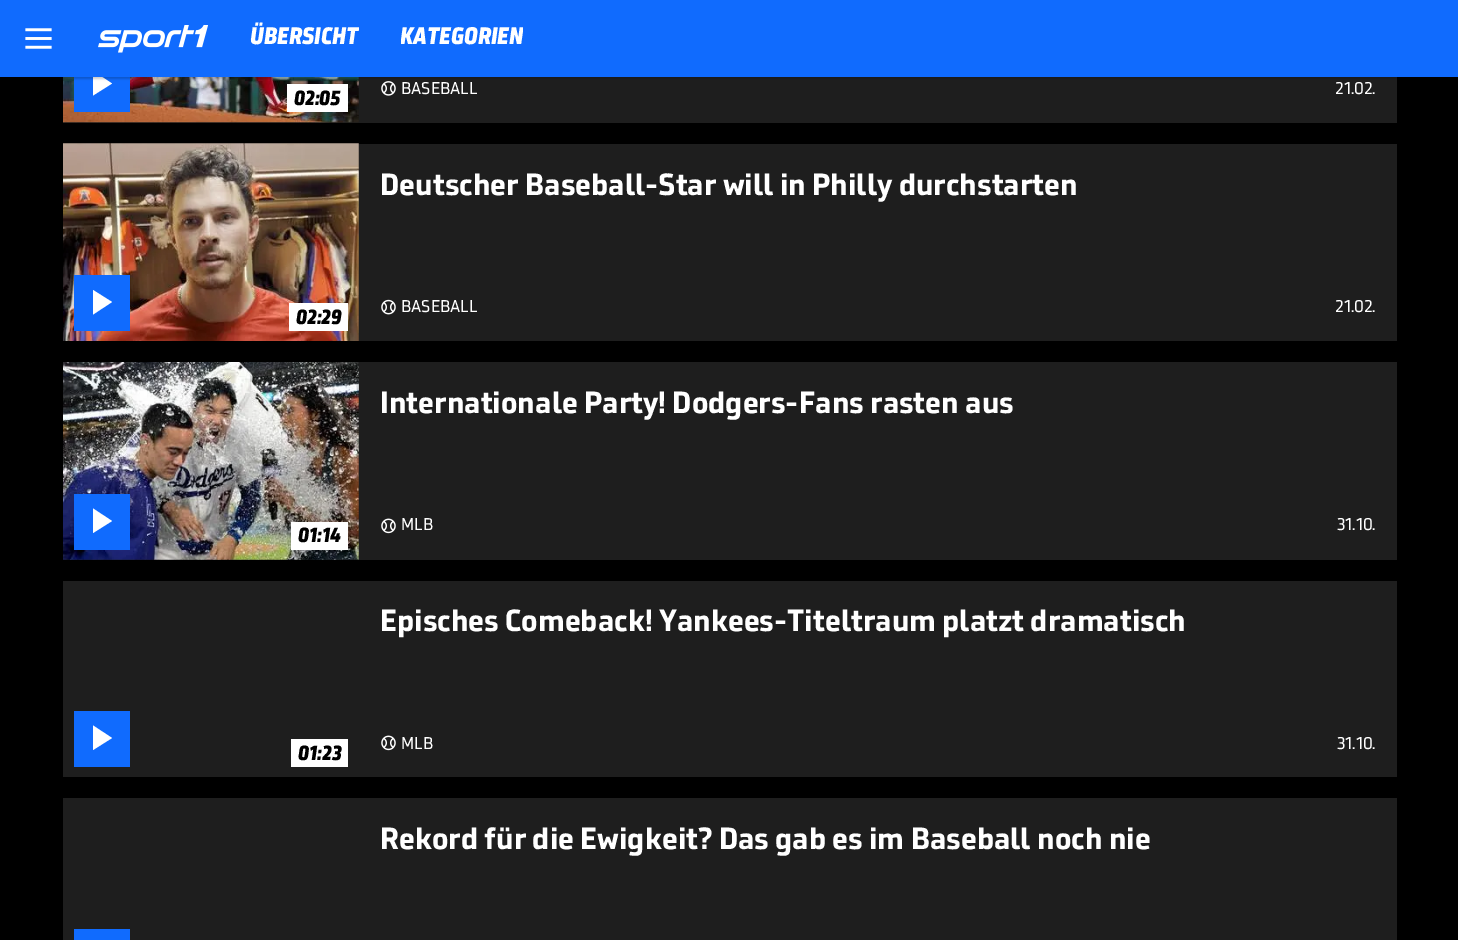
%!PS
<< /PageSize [1458 940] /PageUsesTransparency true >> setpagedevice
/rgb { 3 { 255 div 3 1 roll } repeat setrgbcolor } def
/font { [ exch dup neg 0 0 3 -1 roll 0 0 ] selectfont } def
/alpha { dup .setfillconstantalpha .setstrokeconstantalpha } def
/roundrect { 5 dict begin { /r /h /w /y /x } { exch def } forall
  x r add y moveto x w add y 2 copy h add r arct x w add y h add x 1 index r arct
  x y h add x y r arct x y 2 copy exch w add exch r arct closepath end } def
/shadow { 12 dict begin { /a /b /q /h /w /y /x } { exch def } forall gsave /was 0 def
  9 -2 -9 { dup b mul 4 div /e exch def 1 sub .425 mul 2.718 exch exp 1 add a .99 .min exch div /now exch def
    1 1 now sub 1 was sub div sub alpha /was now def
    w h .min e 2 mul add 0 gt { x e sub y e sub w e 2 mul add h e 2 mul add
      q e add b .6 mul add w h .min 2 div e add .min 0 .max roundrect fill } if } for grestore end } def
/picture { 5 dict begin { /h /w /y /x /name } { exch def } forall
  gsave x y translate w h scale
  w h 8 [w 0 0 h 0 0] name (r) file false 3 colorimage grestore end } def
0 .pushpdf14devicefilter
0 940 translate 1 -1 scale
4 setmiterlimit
0 0 0 rgb
0 0 1458 940 rectfill
30 30 30 rgb
63 77 1334 46 rectfill
(img/3.rgb) 381 81 15 15 picture
(img/4.rgb) 63 77 296 46 picture
16 107 254 rgb
74 77 56 35 rectfill
255 255 255 rgb
93 95.5 moveto 93 71 lineto 112 83.5 lineto closepath fill
0 0 0 rgb
0 2 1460 77 0 1 0.2 shadow
16 107 254 rgb
0 0 1458 77 rectfill
(img/1.rgb) 25 28 27 21 picture
(img/2.rgb) 98 25 110 28 picture
255 255 255 rgb
287 84 61 28 rectfill
30 30 30 rgb
358 144 1039 197 rectfill
(img/5.rgb) 381 299 15 16 picture
(img/6.rgb) 63 143 296 198 picture
16 107 254 rgb
74 275 56 56 rectfill
255 255 255 rgb
93 314.5 moveto 93 290 lineto 112 302 lineto closepath fill
289 303 59 28 rectfill
30 30 30 rgb
63 362 1334 198 rectfill
(img/7.rgb) 381 518 15 16 picture
(img/8.rgb) 63 362 296 198 picture
16 107 254 rgb
74 494 56 56 rectfill
255 255 255 rgb
93 533 moveto 93 508.5 lineto 112 521 lineto closepath fill
291 522 57 28 rectfill
30 30 30 rgb
63 581 1334 196 rectfill
(img/7.rgb) 381 735 15 16 picture
16 107 254 rgb
74 711 56 56 rectfill
255 255 255 rgb
93 750 moveto 93 725.5 lineto 112 738 lineto closepath fill
[
  [291 739 57 28 255 255 255]
  [63 798 1334 142 30 30 30]
  [74 929 56 11 16 107 254]
] { aload pop rgb rectfill } forall
gsave
250 21 109 32 rectclip
/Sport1-BlackItalic 24.5 font
255 255 255 rgb
250 44 moveto (ÜBERSICHT) show
grestore
gsave
401 21 122 32 rectclip
/Sport1-BlackItalic 24.5 font
255 255 255 rgb
400 44 moveto (KATEGORIEN) show
grestore
/Sport1-Regular 17.5 font
255 255 255 rgb
401 94 moveto (BASEBALL) show
1335 94 moveto (21.02.) show
/Sport1-BlackItalic 21 font
0 0 0 rgb
294 105 moveto (02:05) show
/Sport1-Bold 31.5 font
255 255 255 rgb
380 195 moveto (Deutscher Baseball-Star will in Philly durchstarten) show
/Sport1-Regular 17.5 font
401 312 moveto (BASEBALL) show
1335 312 moveto (21.02.) show
/Sport1-BlackItalic 21 font
0 0 0 rgb
296 324 moveto (02:29) show
/Sport1-Bold 31.5 font
255 255 255 rgb
380 413 moveto (Internationale Party! Dodgers-Fans rasten aus) show
/Sport1-Regular 17.5 font
401 530 moveto (MLB) show
1337 530 moveto (31.10.) show
/Sport1-BlackItalic 21 font
0 0 0 rgb
298 542 moveto (01:14) show
/Sport1-Bold 31.5 font
255 255 255 rgb
380 631 moveto (Episches Comeback! Yankees-Titeltraum platzt dramatisch) show
/Sport1-Regular 17.5 font
401 749 moveto (MLB) show
1337 749 moveto (31.10.) show
/Sport1-BlackItalic 21 font
0 0 0 rgb
298 760 moveto (01:23) show
/Sport1-Bold 31.5 font
255 255 255 rgb
380 849 moveto (Rekord für die Ewigkeit? Das gab es im Baseball noch nie) show
.poppdf14devicefilter showpage
